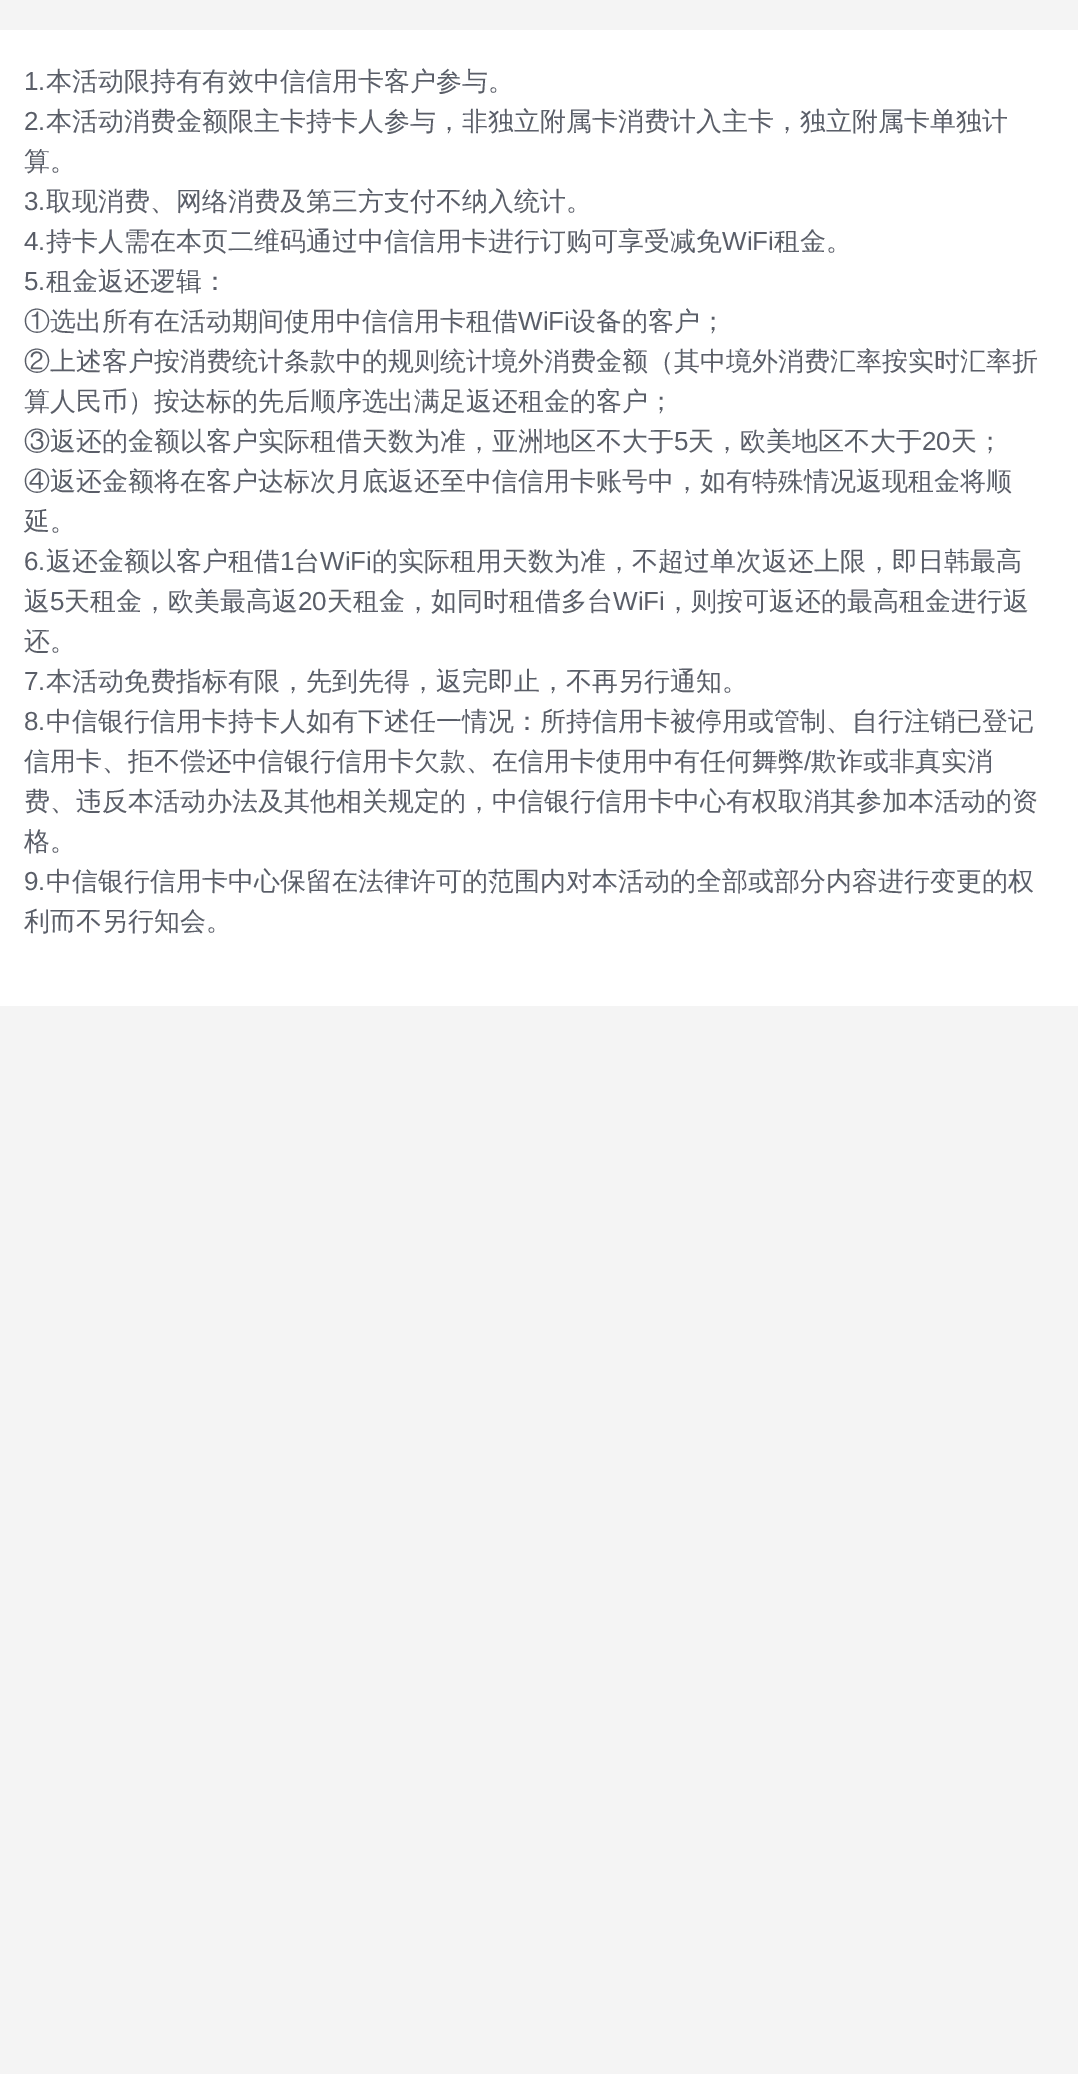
%!PS
<< /PageSize [1078 2074] >> setpagedevice
/rgb { 3 { 255 div 3 1 roll } repeat setrgbcolor } def
/font { [ exch dup neg 0 0 3 -1 roll 0 0 ] selectfont } def
0 2074 translate 1 -1 scale
4 setmiterlimit
244 244 244 rgb
0 0 1078 2074 rectfill
255 255 255 rgb
0 30 1078 976 rectfill
/LiberationSans-Regular 26 font
90 94 104 rgb
24 90 moveto (1.) show
/WenQuanYiZenHei-Medium 26 font
46 90 moveto (本活动限持有有效中信信用卡客户参与。) show
/LiberationSans-Regular 26 font
24 130 moveto (2.) show
/WenQuanYiZenHei-Medium 26 font
46 130 moveto (本活动消费金额限主卡持卡人参与，非独立附属卡消费计入主卡，独立附属卡单独计) show
24 170 moveto (算。) show
/LiberationSans-Regular 26 font
24 210 moveto (3.) show
/WenQuanYiZenHei-Medium 26 font
46 210 moveto (取现消费、网络消费及第三方支付不纳入统计。) show
/LiberationSans-Regular 26 font
24 250 moveto (4.) show
/WenQuanYiZenHei-Medium 26 font
46 250 moveto (持卡人需在本页二维码通过中信信用卡进行订购可享受减免) show
/LiberationSans-Regular 26 font
722 250 moveto (WiFi) show
/WenQuanYiZenHei-Medium 26 font
774 250 moveto (租金。) show
/LiberationSans-Regular 26 font
24 290 moveto (5.) show
/WenQuanYiZenHei-Medium 26 font
46 290 moveto (租金返还逻辑：) show
24 330 moveto (①选出所有在活动期间使用中信信用卡租借) show
/LiberationSans-Regular 26 font
518 330 moveto (WiFi) show
/WenQuanYiZenHei-Medium 26 font
[
  [(设备的客户；) 570 330]
  [(②上述客户按消费统计条款中的规则统计境外消费金额（其中境外消费汇率按实时汇率折) 24 370]
  [(算人民币）按达标的先后顺序选出满足返还租金的客户；) 24 410]
  [(③返还的金额以客户实际租借天数为准，亚洲地区不大于) 24 450]
] { aload pop moveto show } forall
/LiberationSans-Regular 26 font
674 450 moveto (5) show
/WenQuanYiZenHei-Medium 26 font
688 450 moveto (天，欧美地区不大于) show
/LiberationSans-Regular 26 font
922 450 moveto (20) show
/WenQuanYiZenHei-Medium 26 font
[
  [(天；) 951 450]
  [(④返还金额将在客户达标次月底返还至中信信用卡账号中，如有特殊情况返现租金将顺) 24 490]
  [(延。) 24 530]
] { aload pop moveto show } forall
/LiberationSans-Regular 26 font
24 570 moveto (6.) show
/WenQuanYiZenHei-Medium 26 font
46 570 moveto (返还金额以客户租借) show
/LiberationSans-Regular 26 font
280 570 moveto (1) show
/WenQuanYiZenHei-Medium 26 font
294 570 moveto (台) show
/LiberationSans-Regular 26 font
320 570 moveto (WiFi) show
/WenQuanYiZenHei-Medium 26 font
372 570 moveto (的实际租用天数为准，不超过单次返还上限，即日韩最高) show
24 610 moveto (返) show
/LiberationSans-Regular 26 font
50 610 moveto (5) show
/WenQuanYiZenHei-Medium 26 font
64 610 moveto (天租金，欧美最高返) show
/LiberationSans-Regular 26 font
298 610 moveto (20) show
/WenQuanYiZenHei-Medium 26 font
327 610 moveto (天租金，如同时租借多台) show
/LiberationSans-Regular 26 font
613 610 moveto (WiFi) show
/WenQuanYiZenHei-Medium 26 font
665 610 moveto (，则按可返还的最高租金进行返) show
24 650 moveto (还。) show
/LiberationSans-Regular 26 font
24 690 moveto (7.) show
/WenQuanYiZenHei-Medium 26 font
46 690 moveto (本活动免费指标有限，先到先得，返完即止，不再另行通知。) show
/LiberationSans-Regular 26 font
24 730 moveto (8.) show
/WenQuanYiZenHei-Medium 26 font
46 730 moveto (中信银行信用卡持卡人如有下述任一情况：所持信用卡被停用或管制、自行注销已登记) show
24 770 moveto (信用卡、拒不偿还中信银行信用卡欠款、在信用卡使用中有任何舞弊) show
/LiberationSans-Regular 26 font
804 770 moveto (/) show
/WenQuanYiZenHei-Medium 26 font
[
  [(欺诈或非真实消) 811 770]
  [(费、违反本活动办法及其他相关规定的，中信银行信用卡中心有权取消其参加本活动的资) 24 810]
  [(格。) 24 850]
] { aload pop moveto show } forall
/LiberationSans-Regular 26 font
24 890 moveto (9.) show
/WenQuanYiZenHei-Medium 26 font
46 890 moveto (中信银行信用卡中心保留在法律许可的范围内对本活动的全部或部分内容进行变更的权) show
24 930 moveto (利而不另行知会。) show
showpage
